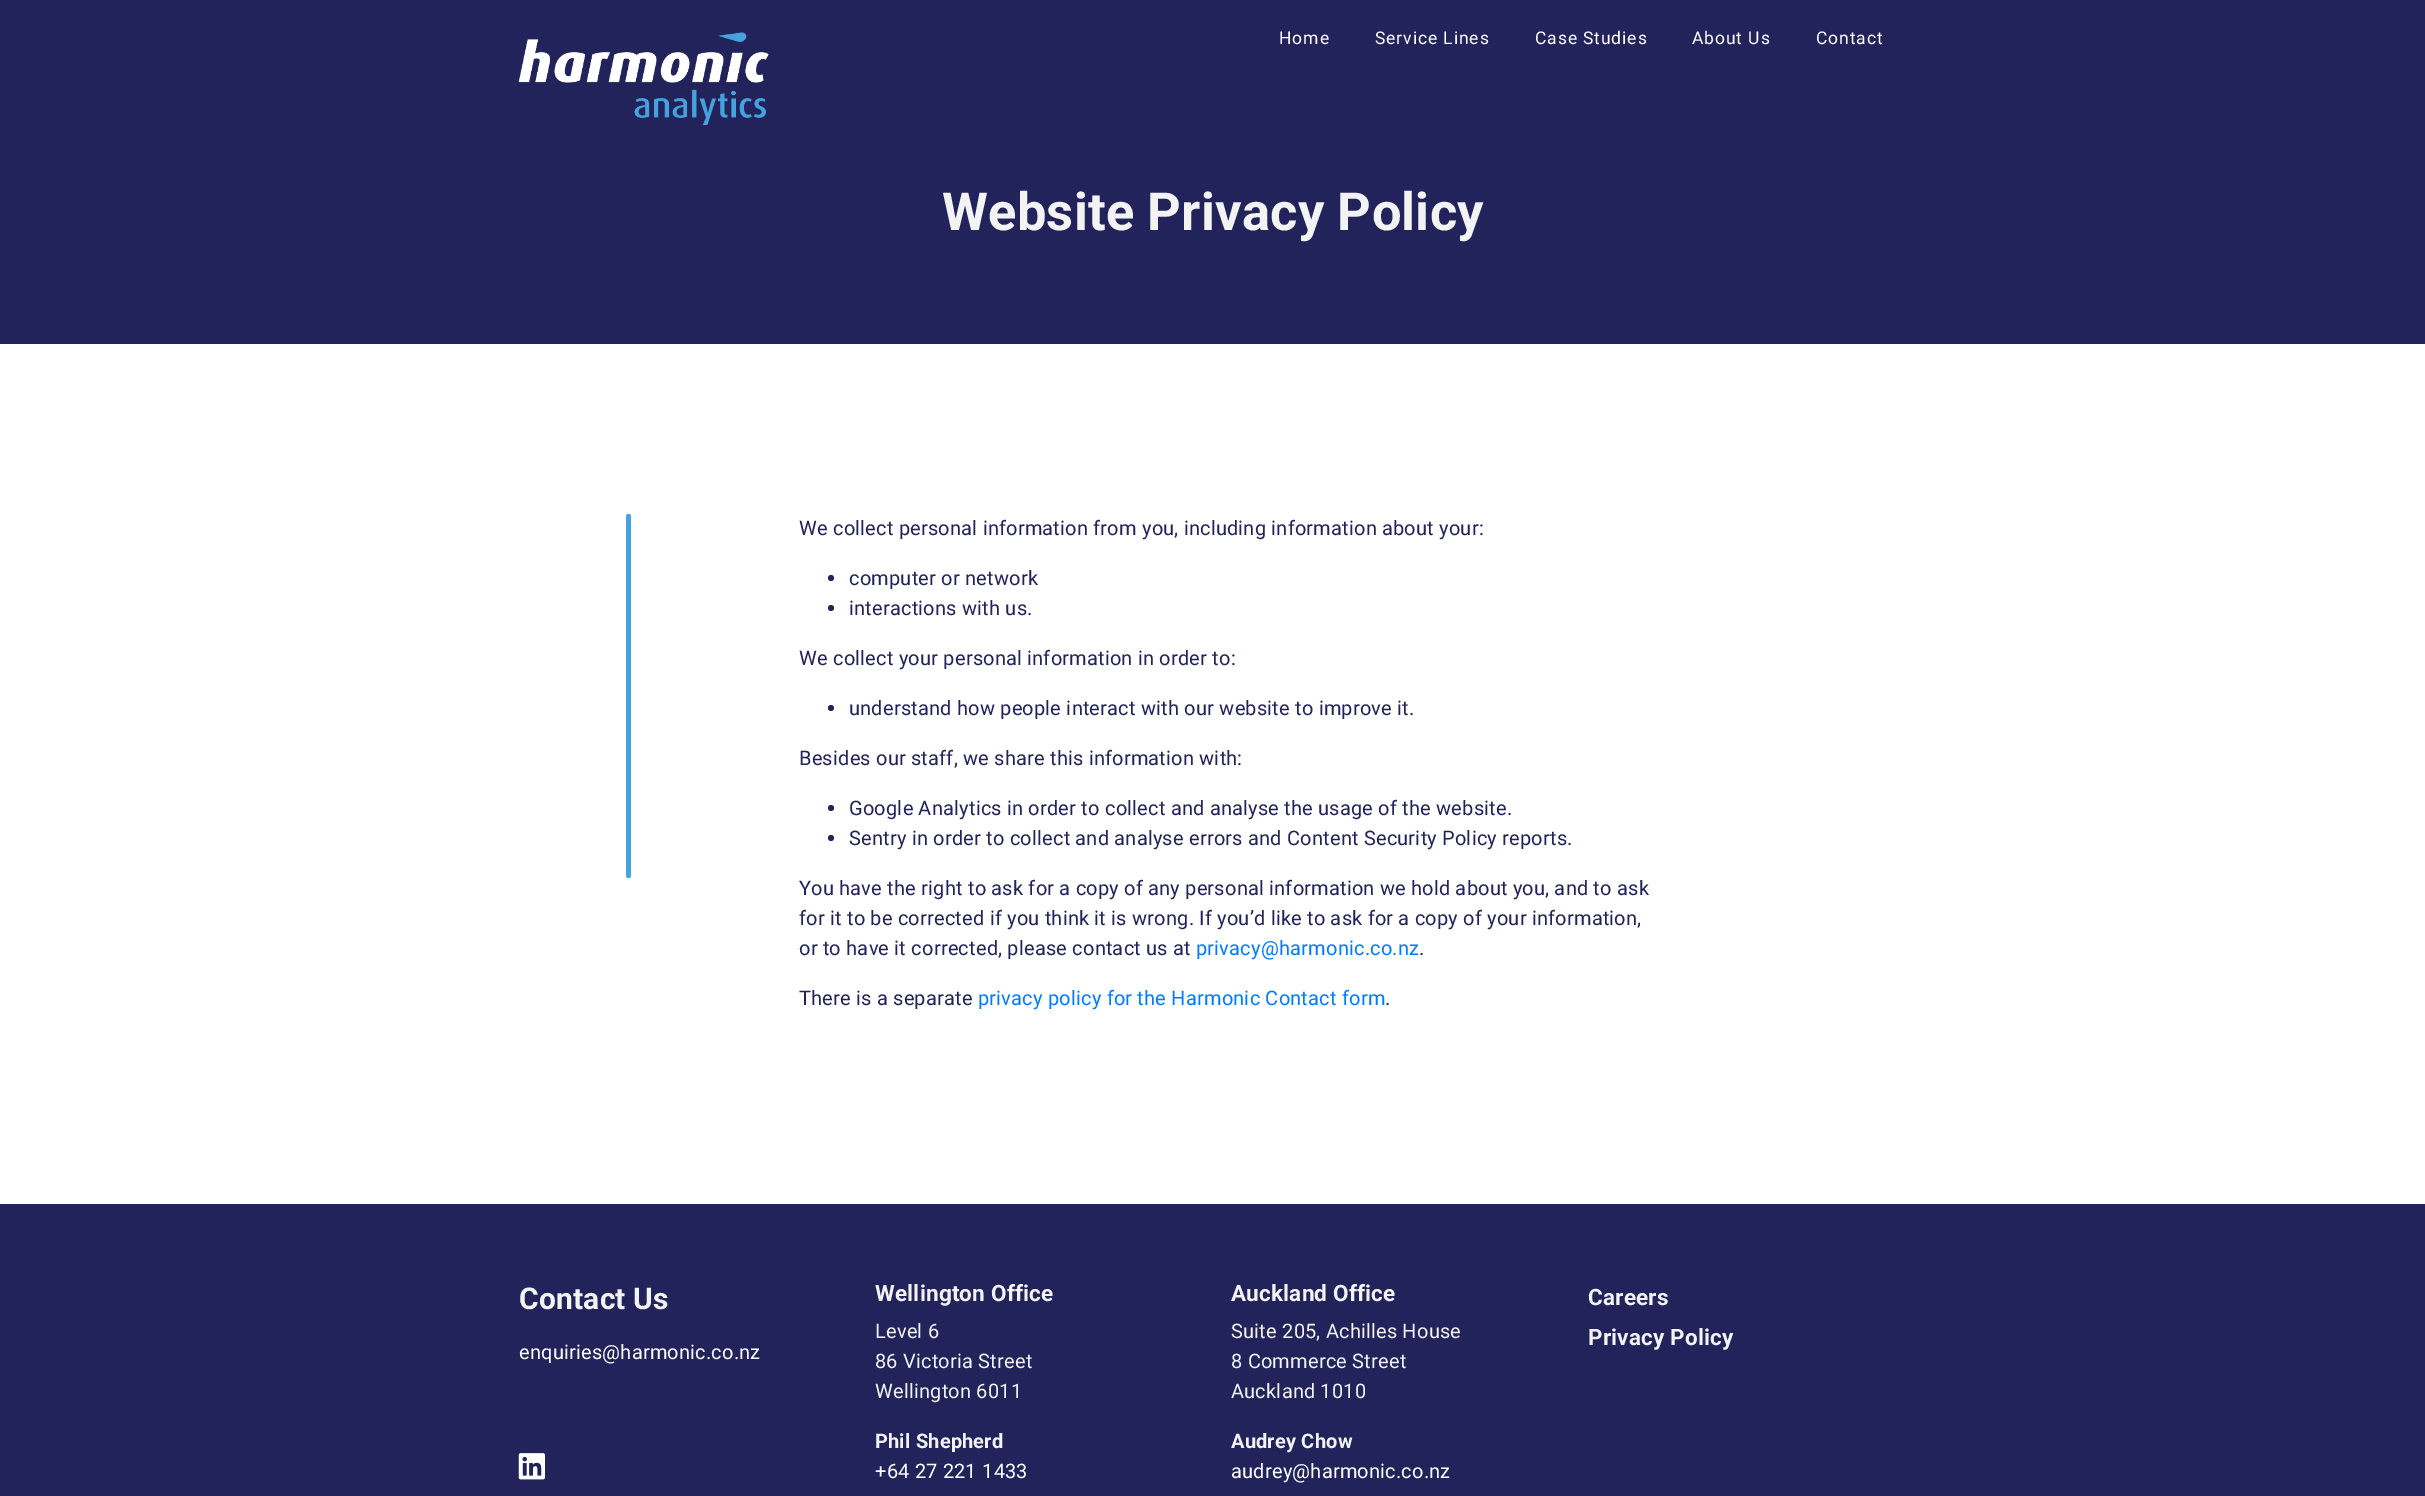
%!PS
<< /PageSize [2425 1496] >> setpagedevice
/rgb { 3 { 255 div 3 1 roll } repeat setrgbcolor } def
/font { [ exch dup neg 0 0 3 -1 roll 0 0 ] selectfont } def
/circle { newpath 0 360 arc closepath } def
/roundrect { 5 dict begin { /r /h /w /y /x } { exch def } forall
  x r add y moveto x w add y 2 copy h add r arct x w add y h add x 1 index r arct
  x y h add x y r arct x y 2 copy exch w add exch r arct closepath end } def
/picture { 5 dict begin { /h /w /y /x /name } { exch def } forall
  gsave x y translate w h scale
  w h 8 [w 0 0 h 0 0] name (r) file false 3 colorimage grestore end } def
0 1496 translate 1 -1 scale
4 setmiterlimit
33 35 90 rgb
0 0 2425 1496 rectfill
(img/1.rgb) 518 32 251 93 picture
255 255 255 rgb
0 344 2425 860 rectfill
70 162 223 rgb
626 514 5 364 2.5 roundrect fill
33 35 90 rgb
831 578 3 circle fill
831 608 3 circle fill
831 708 3 circle fill
831 808 3 circle fill
831 838 3 circle fill
(img/2.rgb) 518 1453 27 27 picture
/Roboto-Regular 17.5 font
255 255 255 rgb
1279 44 moveto 0.9 0 (Home) ashow
1375 44 moveto 0.9 0 (Service Lines) ashow
1535 44 moveto 0.9 0 (Case Studies) ashow
1692 44 moveto 0.9 0 (About Us) ashow
1816 44 moveto 0.9 0 (Contact) ashow
/Roboto-Bold 52.5 font
243 243 243 rgb
942 230 moveto 0.2 0 (Website Privacy Policy) ashow
/Roboto-Regular 20 font
33 35 90 rgb
799 535 moveto 0.2 0 (We collect personal information from you, including information about your:) ashow
849 585 moveto 0.2 0 (computer or network) ashow
849 615 moveto 0.2 0 (interactions with us.) ashow
799 665 moveto 0.2 0 (We collect your personal information in order to:) ashow
849 715 moveto 0.2 0 (understand how people interact with our website to improve it.) ashow
799 765 moveto 0.2 0 (Besides our staff, we share this information with:) ashow
849 815 moveto 0.2 0 (Google Analytics in order to collect and analyse the usage of the website.) ashow
849 845 moveto 0.2 0 (Sentry in order to collect and analyse errors and Content Security Policy reports.) ashow
799 895 moveto 0.2 0 (You have the right to ask for a copy of any personal information we hold about you, and to ask) ashow
799 925 moveto 0.2 0 (for it to be corrected if you think it is wrong. If you’d like to ask for a copy of your information,) ashow
799 955 moveto 0.2 0 (or to have it corrected, please contact us at) ashow
0 123 255 rgb
1196 955 moveto 0.2 0 (privacy@harmonic.co.nz) ashow
33 35 90 rgb
1419 955 moveto 0.2 0 (.) ashow
799 1005 moveto 0.2 0 (There is a separate) ashow
0 123 255 rgb
978 1005 moveto 0.2 0 (privacy policy for the Harmonic Contact form) ashow
33 35 90 rgb
1385 1005 moveto 0.2 0 (.) ashow
/Roboto-Bold 30 font
243 243 243 rgb
519 1309 moveto 0.2 0 (Contact Us) ashow
/Roboto-Regular 20 font
255 255 255 rgb
519 1359 moveto 0.2 0 (enquiries@harmonic.co.nz) ashow
/Roboto-Bold 22.5 font
243 243 243 rgb
875 1301 moveto 0.2 0 (Wellington Office) ashow
/Roboto-Regular 20 font
875 1338 moveto 0.2 0 (Level 6) ashow
875 1368 moveto 0.2 0 (86 Victoria Street) ashow
875 1398 moveto 0.2 0 (Wellington 6011) ashow
/Roboto-Bold 22.5 font
1231 1301 moveto 0.2 0 (Auckland Office) ashow
/Roboto-Regular 20 font
1231 1338 moveto 0.2 0 (Suite 205, Achilles House) ashow
1231 1368 moveto 0.2 0 (8 Commerce Street) ashow
1231 1398 moveto 0.2 0 (Auckland 1010) ashow
/Roboto-Bold 22.5 font
1588 1305 moveto 0.2 0 (Careers) ashow
1588 1345 moveto 0.2 0 (Privacy Policy) ashow
/Roboto-Bold 20 font
875 1448 moveto 0.2 0 (Phil Shepherd) ashow
/Roboto-Regular 20 font
255 255 255 rgb
875 1478 moveto 0.2 0 (+64 27 221 1433) ashow
/Roboto-Bold 20 font
243 243 243 rgb
1231 1448 moveto 0.2 0 (Audrey Chow) ashow
/Roboto-Regular 20 font
255 255 255 rgb
1231 1478 moveto 0.2 0 (audrey@harmonic.co.nz) ashow
showpage
